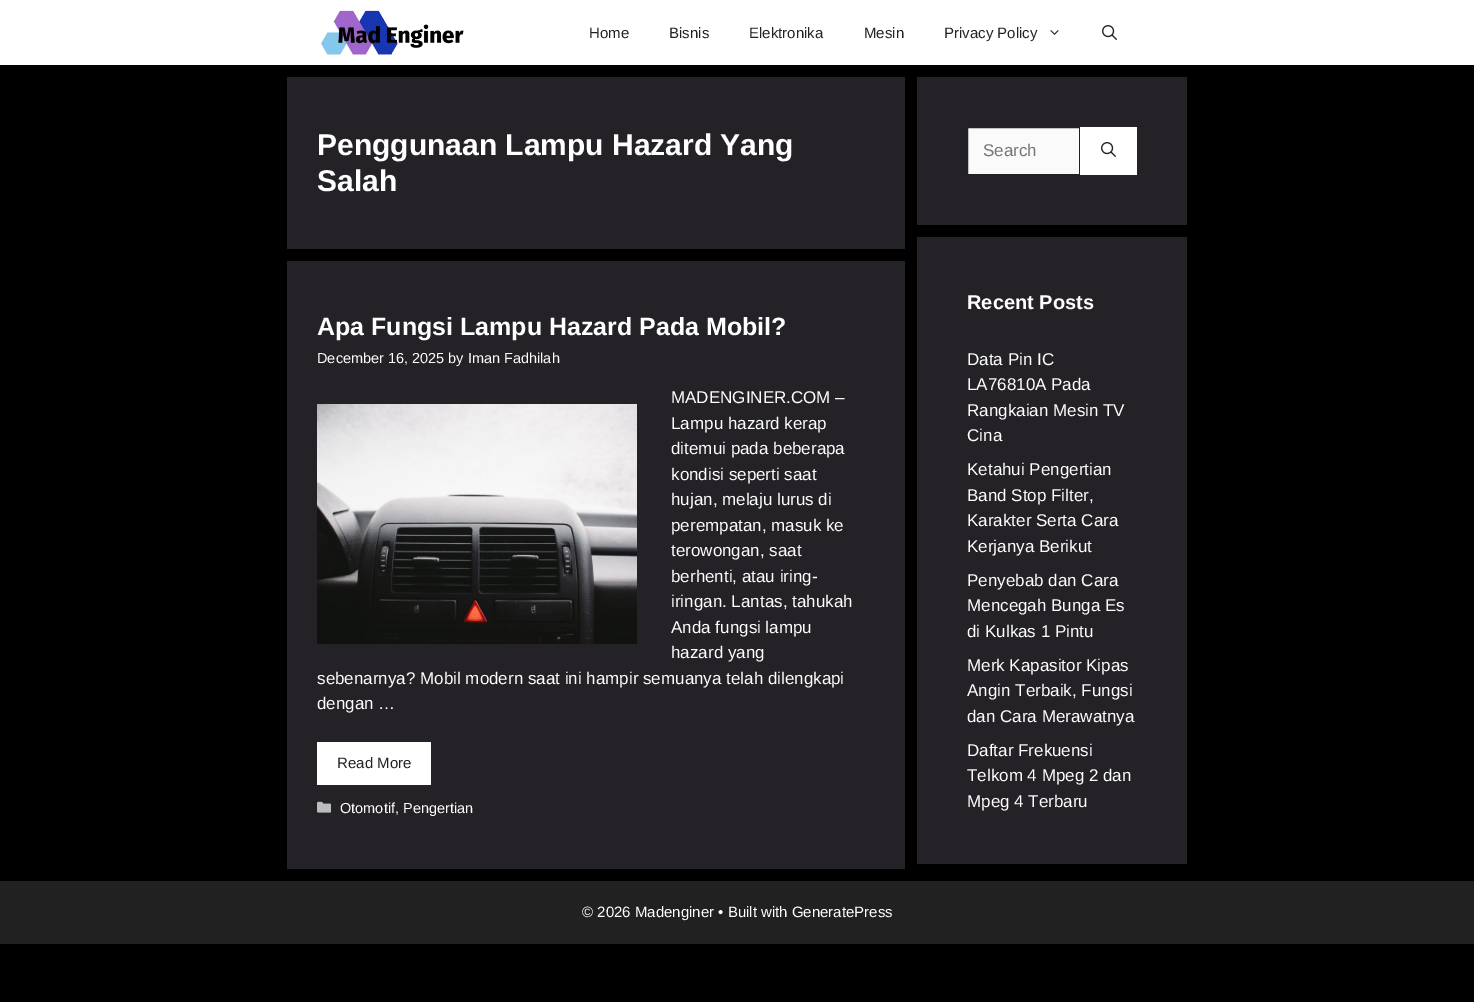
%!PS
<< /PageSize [1474 1002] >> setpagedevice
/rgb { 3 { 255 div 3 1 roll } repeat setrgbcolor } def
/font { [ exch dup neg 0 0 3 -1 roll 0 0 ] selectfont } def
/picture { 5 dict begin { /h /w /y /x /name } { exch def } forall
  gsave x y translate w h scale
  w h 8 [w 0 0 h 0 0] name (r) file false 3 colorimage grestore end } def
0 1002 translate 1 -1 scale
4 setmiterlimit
0 0 0 rgb
0 0 1474 1002 rectfill
255 255 255 rgb
0 0 1474 65 rectfill
(img/1.rgb) 320 10 144 45 picture
(img/2.rgb) 1050 30 9 5 picture
(img/3.rgb) 1102 25 15 15 picture
[
  [287 77 618 172 36 34 38]
  [287 261 618 608 36 34 38]
  [317 742 114 43 255 255 255]
] { aload pop rgb rectfill } forall
(img/4.rgb) 317 404 320 240 picture
(img/5.rgb) 317 801 14 12 picture
36 34 38 rgb
917 77 270 148 rectfill
250 250 250 rgb
967.5 127.5 moveto 1079.5 127.5 lineto 1079.5 174.5 lineto 967.5 174.5 lineto closepath gsave fill grestore
33 33 33 rgb
stroke
255 255 255 rgb
1080 127 57 48 rectfill
(img/3.rgb) 1101 142 15 15 picture
36 34 38 rgb
917 237 270 627 rectfill
33 33 33 rgb
0 881 1474 63 rectfill
/LiberationSans-Regular 15 font
36 34 38 rgb
[
  [(Home) 589 38]
  [(Bisnis) 669 38]
  [(Elektronika) 749 38]
  [(Mesin) 864 38]
  [(Privacy Policy) 944 38]
] { aload pop moveto show } forall
/LiberationSans-Bold 30 font
255 255 255 rgb
317 155 moveto (Penggunaan Lampu Hazard Yang) show
317 191 moveto (Salah) show
/LiberationSans-Bold 25 font
317 335 moveto (Apa Fungsi Lampu Hazard Pada Mobil?) show
/LiberationSans-Regular 14.5 font
317 363 moveto (December 16, 2025 by Iman Fadhilah) show
/LiberationSans-Regular 17 font
[
  [(MADENGINER.COM –) 671 403]
  [(Lampu hazard kerap) 671 429]
  [(ditemui pada beberapa) 671 454]
  [(kondisi seperti saat) 671 480]
  [(hujan, melaju lurus di) 671 505]
  [(perempatan, masuk ke) 671 531]
  [(terowongan, saat) 671 556]
  [(berhenti, atau iring-) 671 582]
  [(iringan. Lantas, tahukah) 671 607]
  [(Anda fungsi lampu) 671 633]
  [(hazard yang) 671 658]
  [(sebenarnya? Mobil modern saat ini hampir semuanya telah dilengkapi) 317 684]
  [(dengan …) 317 709]
] { aload pop moveto show } forall
/LiberationSans-Regular 15 font
36 34 38 rgb
337 768 moveto (Read More) show
/LiberationSans-Regular 14.5 font
255 255 255 rgb
340 813 moveto (Otomotif, Pengertian) show
/LiberationSans-Regular 17 font
117 117 117 rgb
983 156 moveto (Search) show
/LiberationSans-Bold 20 font
255 255 255 rgb
967 309 moveto (Recent Posts) show
/LiberationSans-Regular 17 font
[
  [(Data Pin IC) 967 365]
  [(LA76810A Pada) 967 390]
  [(Rangkaian Mesin TV) 967 416]
  [(Cina) 967 441]
  [(Ketahui Pengertian) 967 475]
  [(Band Stop Filter,) 967 501]
  [(Karakter Serta Cara) 967 526]
  [(Kerjanya Berikut) 967 552]
  [(Penyebab dan Cara) 967 586]
  [(Mencegah Bunga Es) 967 611]
  [(di Kulkas 1 Pintu) 967 637]
  [(Merk Kapasitor Kipas) 967 671]
  [(Angin Terbaik, Fungsi) 967 696]
  [(dan Cara Merawatnya) 967 722]
  [(Daftar Frekuensi) 967 756]
  [(Telkom 4 Mpeg 2 dan) 967 781]
  [(Mpeg 4 Terbaru) 967 807]
] { aload pop moveto show } forall
/LiberationSans-Regular 15 font
582 917 moveto (© 2026 Madenginer • Built with GeneratePress) show
showpage
